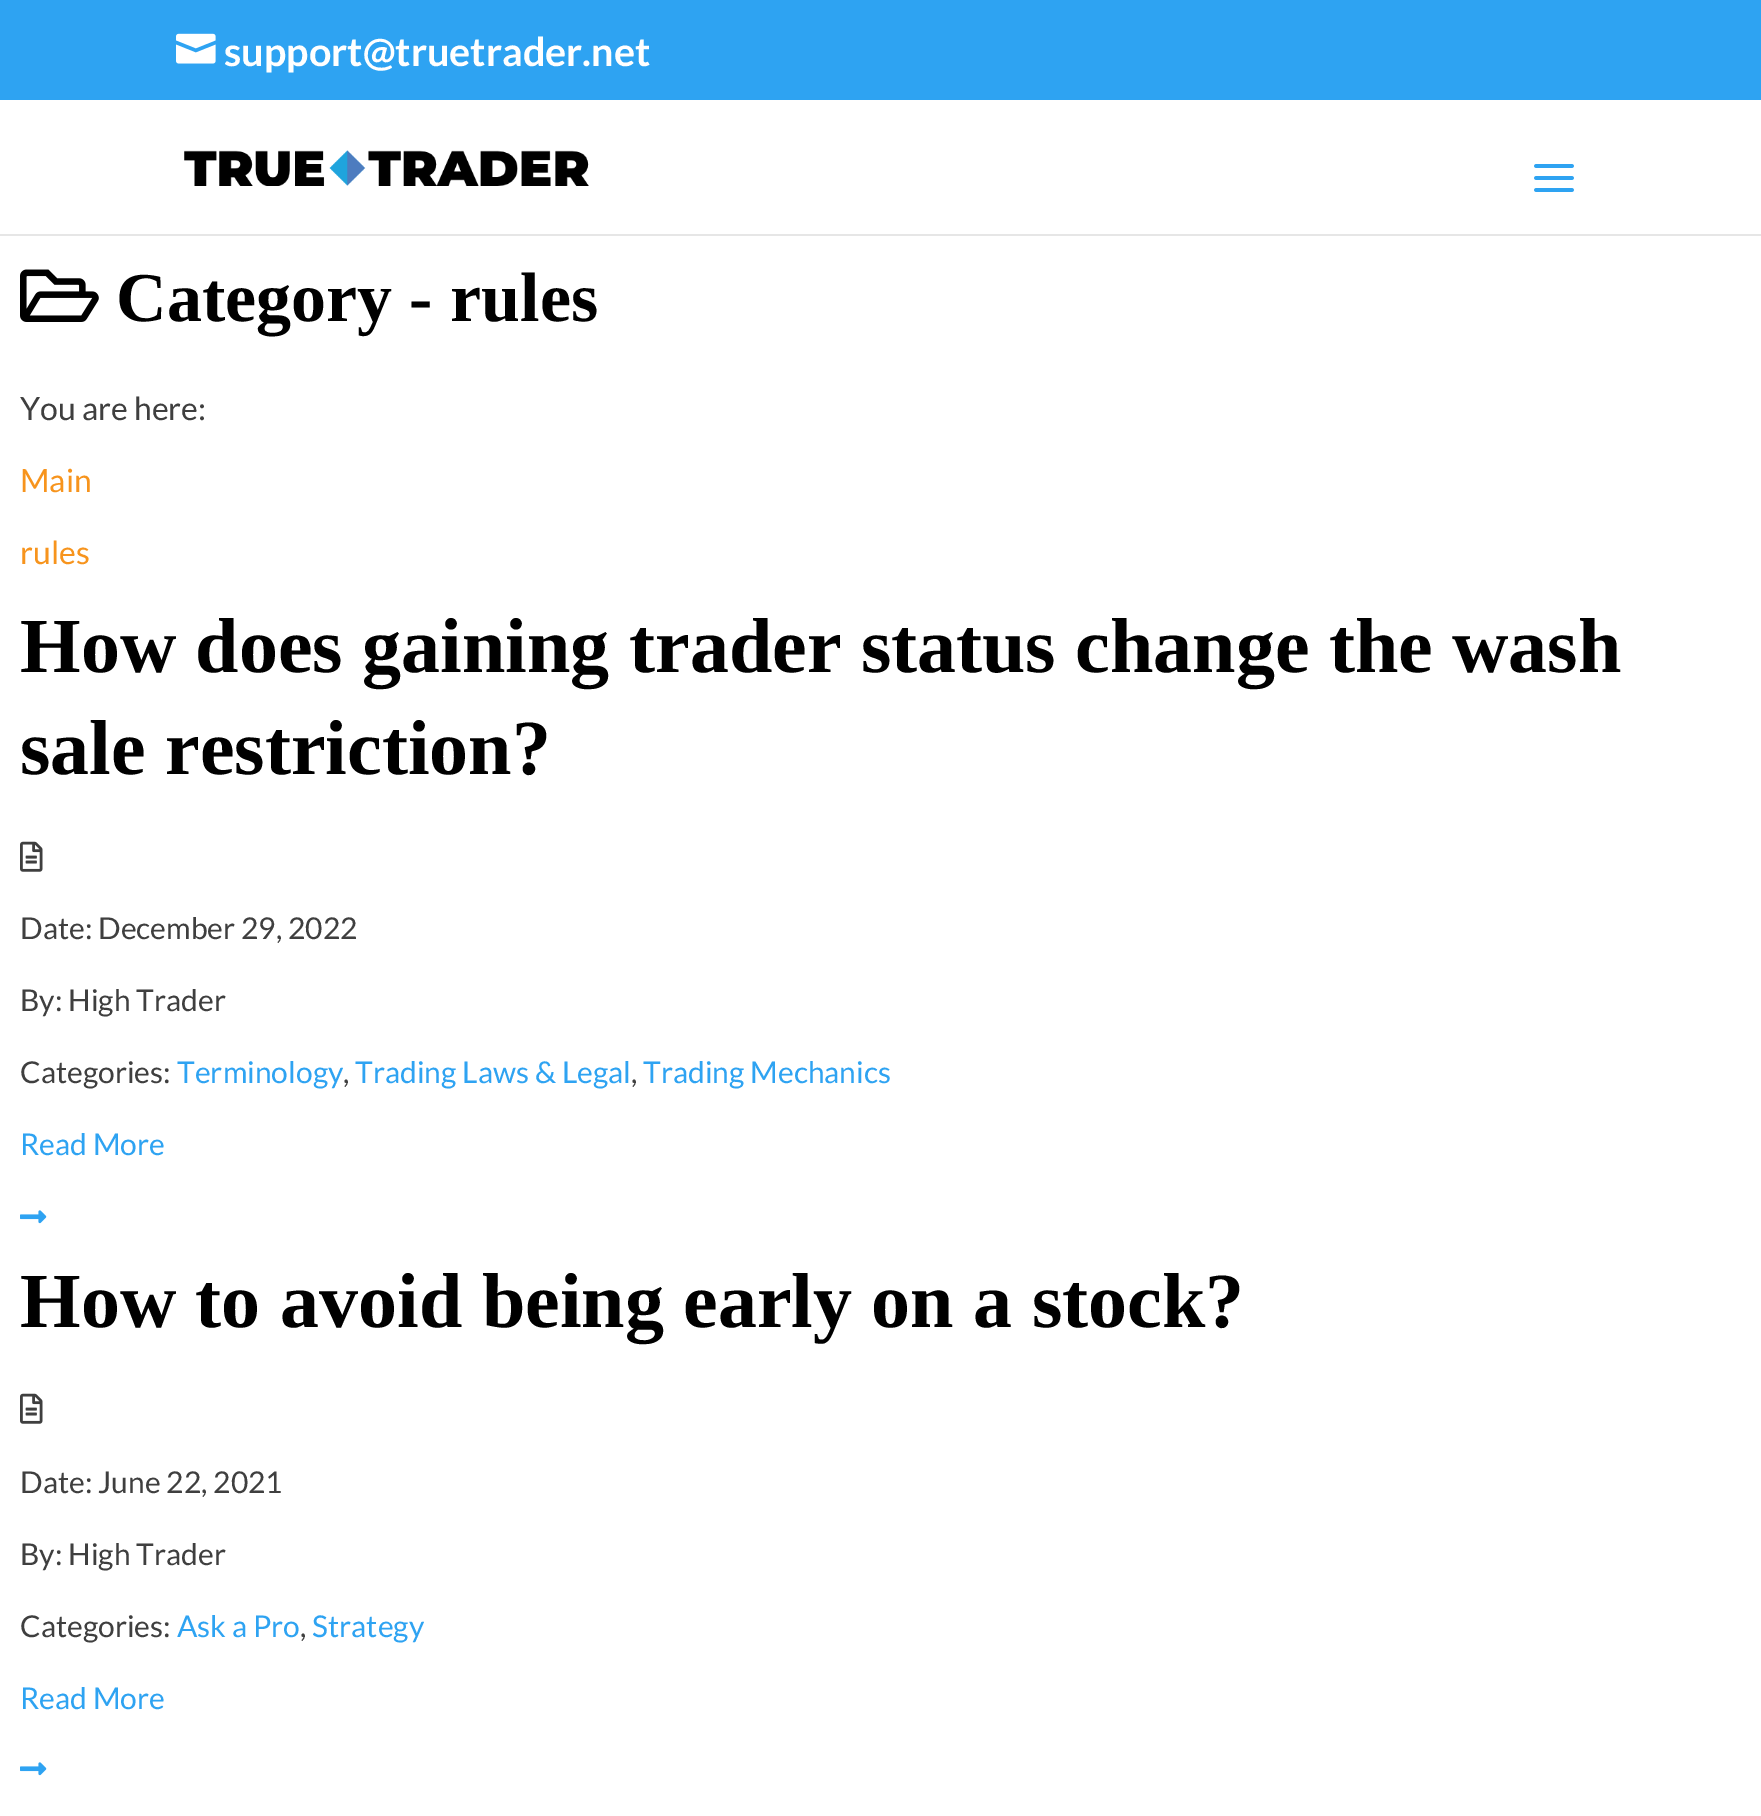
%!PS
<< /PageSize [1761 1816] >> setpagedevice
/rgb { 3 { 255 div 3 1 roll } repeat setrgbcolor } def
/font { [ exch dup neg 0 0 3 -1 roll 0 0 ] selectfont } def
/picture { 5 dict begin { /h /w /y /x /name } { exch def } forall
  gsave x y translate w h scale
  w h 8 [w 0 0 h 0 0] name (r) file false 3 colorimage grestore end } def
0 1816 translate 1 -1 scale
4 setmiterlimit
255 255 255 rgb
0 0 1761 1816 rectfill
46 163 242 rgb
0 0 1761 100 rectfill
(img/1.rgb) 176 33 40 31 picture
230 230 230 rgb
0 234 1761 2 rectfill
(img/2.rgb) 184 150 405 36 picture
(img/3.rgb) 1534 164 40 28 picture
(img/4.rgb) 20 269 79 53 picture
(img/5.rgb) 20 841 23 31 picture
(img/6.rgb) 20 1210 27 14 picture
(img/5.rgb) 20 1393 23 31 picture
(img/6.rgb) 20 1762 27 14 picture
/Lato-Bold 39.6 font
255 255 255 rgb
224 66 moveto (support@truetrader.net) show
/LiberationSerif-Bold 70 font
0 0 0 rgb
116 321 moveto (Category - rules) show
/Lato-Regular 32 font
63 63 63 rgb
20 420 moveto (You are here:) show
247 148 29 rgb
20 492 moveto (Main) show
20 564 moveto (rules) show
/LiberationSerif-Bold 78 font
0 0 0 rgb
20 672 moveto (How does gaining trader status change the wash) show
20 774 moveto (sale restriction?) show
/Lato-Regular 30 font
63 63 63 rgb
[
  [(Date: December 29, 2022) 20 939]
  [(By: High Trader) 20 1011]
  [(Categories:) 20 1083]
] { aload pop moveto show } forall
46 163 242 rgb
177 1083 moveto (Terminology) show
63 63 63 rgb
343 1083 moveto (,) show
46 163 242 rgb
355 1083 moveto (Trading Laws & Legal) show
63 63 63 rgb
631 1083 moveto (,) show
46 163 242 rgb
643 1083 moveto (Trading Mechanics) show
20 1155 moveto (Read More) show
/LiberationSerif-Bold 78 font
0 0 0 rgb
20 1327 moveto (How to avoid being early on a stock?) show
/Lato-Regular 30 font
63 63 63 rgb
[
  [(Date: June 22, 2021) 20 1493]
  [(By: High Trader) 20 1565]
  [(Categories:) 20 1637]
] { aload pop moveto show } forall
46 163 242 rgb
177 1637 moveto (Ask a Pro) show
63 63 63 rgb
300 1637 moveto (,) show
46 163 242 rgb
312 1637 moveto (Strategy) show
20 1709 moveto (Read More) show
showpage
